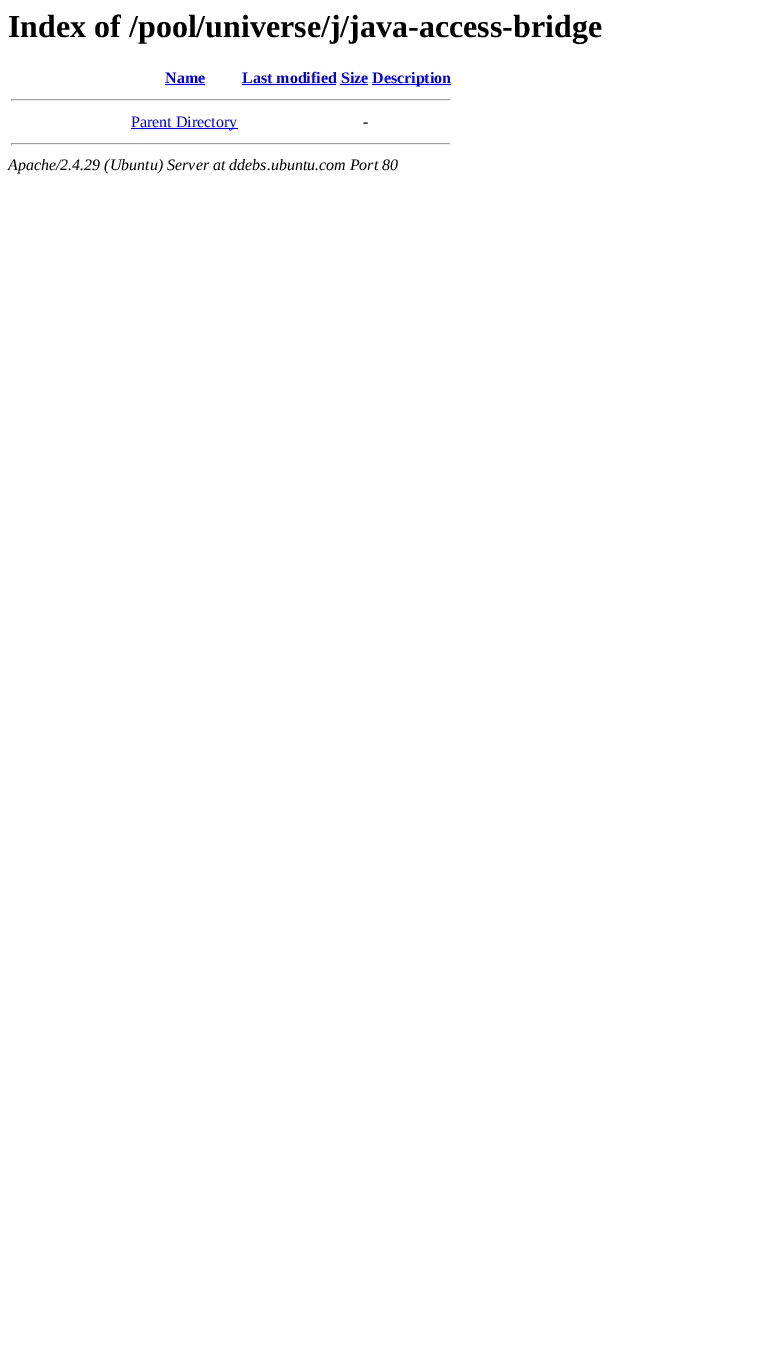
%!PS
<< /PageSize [779 1372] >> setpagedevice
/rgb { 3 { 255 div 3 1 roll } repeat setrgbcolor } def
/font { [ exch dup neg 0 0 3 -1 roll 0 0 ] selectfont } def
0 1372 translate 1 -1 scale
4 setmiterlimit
255 255 255 rgb
0 0 779 1372 rectfill
[
  [165 84 40 1 0 0 238]
  [242 84 94 1 0 0 238]
  [372 84 79 1 0 0 238]
  [340 84 28 1 0 0 238]
  [11 99 440 1 159 159 159]
  [450 99 1 2 238 238 238]
  [11 100 440 1 238 238 238]
  [11 99 1 2 159 159 159]
  [131 128 107 1 0 0 238]
  [11 143 440 1 159 159 159]
  [450 143 1 2 238 238 238]
  [11 144 440 1 238 238 238]
  [11 143 1 2 159 159 159]
] { aload pop rgb rectfill } forall
/LiberationSerif-Bold 32 font
0 0 0 rgb
8 37 moveto (Index of /pool/universe/j/java-access-bridge) show
/LiberationSerif-Bold 16 font
0 0 238 rgb
[
  [(Name) 165 83]
  [(Last modified Size) 242 83]
  [(Description) 372 83]
] { aload pop moveto show } forall
/LiberationSerif-Regular 16 font
131 127 moveto (Parent Directory) show
0 0 0 rgb
363 127 moveto (-) show
/LiberationSerif-Italic 16 font
8 170 moveto (Apache/2.4.29 \(Ubuntu\) Server at ddebs.ubuntu.com Port 80) show
showpage
